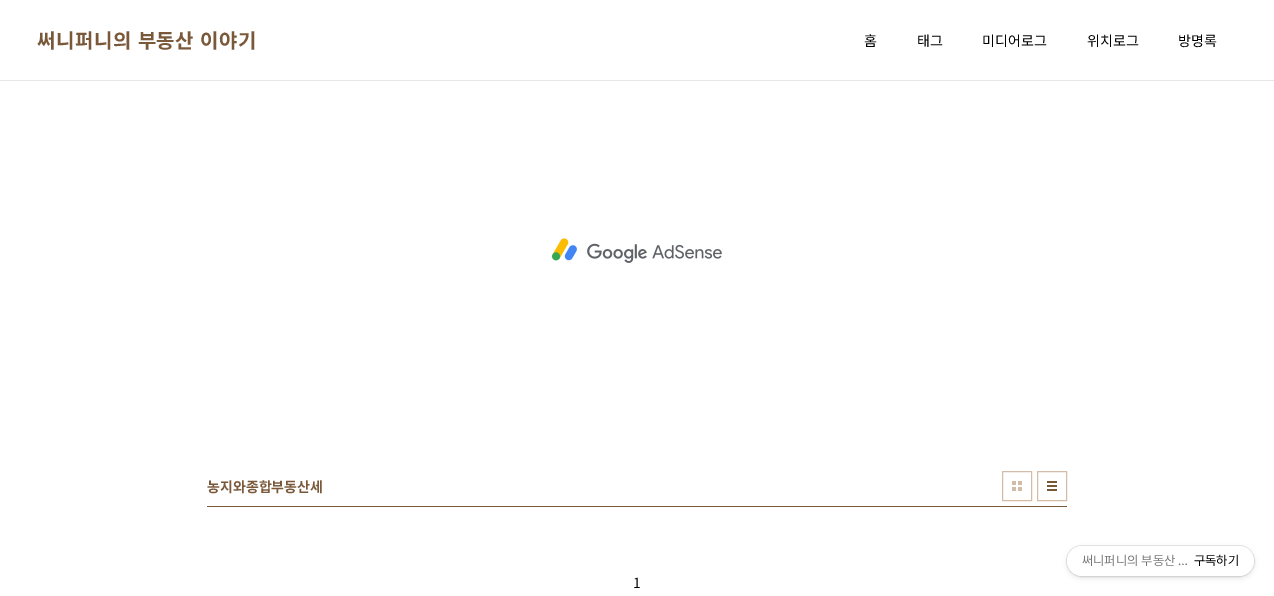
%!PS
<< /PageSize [1274 596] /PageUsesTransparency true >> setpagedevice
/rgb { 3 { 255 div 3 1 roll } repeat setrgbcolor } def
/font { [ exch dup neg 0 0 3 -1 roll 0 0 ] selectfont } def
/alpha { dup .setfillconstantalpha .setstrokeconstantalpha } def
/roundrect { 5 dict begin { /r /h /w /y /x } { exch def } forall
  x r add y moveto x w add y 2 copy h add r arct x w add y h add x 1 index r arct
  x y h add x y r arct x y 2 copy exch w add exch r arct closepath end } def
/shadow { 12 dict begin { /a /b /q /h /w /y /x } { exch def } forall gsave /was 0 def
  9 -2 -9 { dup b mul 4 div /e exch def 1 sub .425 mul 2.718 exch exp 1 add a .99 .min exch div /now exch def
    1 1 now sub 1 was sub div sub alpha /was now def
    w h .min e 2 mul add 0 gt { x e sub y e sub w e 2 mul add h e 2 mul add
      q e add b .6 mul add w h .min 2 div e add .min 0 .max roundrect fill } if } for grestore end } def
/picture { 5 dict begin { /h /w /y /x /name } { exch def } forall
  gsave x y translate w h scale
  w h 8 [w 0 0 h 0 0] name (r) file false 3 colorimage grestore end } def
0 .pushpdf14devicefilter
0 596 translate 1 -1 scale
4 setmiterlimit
255 255 255 rgb
0 0 1274 596 rectfill
230 230 230 rgb
0 80 1274 1 rectfill
(img/1.rgb) 552 238 170 25 picture
122 88 58 rgb
207 506 860 1 rectfill
(img/2.rgb) 1012 481 10 10 picture
212 188 167 rgb
1002.5 471.5 29 29 rectstroke
(img/3.rgb) 1047 481 10 10 picture
1037.5 471.5 29 29 rectstroke
0 0 0 rgb
1067 548 187 30 15 2.5 0.1 shadow
0.1 alpha
1066.5 545.5 188 31 15.5 roundrect stroke
1 alpha
255 255 255 rgb
1067 546 187 30 15 roundrect fill
/NotoSansKR-Bold 20 font
122 88 58 rgb
37 48 moveto 1 0 32 0.5 0 (써니퍼니의 부동산 이야기) awidthshow
/NotoSansKR-Regular 14 font
0 0 0 rgb
[
  [(홈) 864 46]
  [(태그) 917 46]
  [(미디어로그) 982 46]
  [(위치로그) 1087 46]
  [(방명록) 1178 46]
] { aload pop moveto show } forall
/NotoSansKR-Bold 14 font
122 88 58 rgb
207 492 moveto (농지와종합부동산세) show
/NotoSansKR-Regular 14 font
0 0 0 rgb
633 588 moveto (1) show
/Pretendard-Regular 13 font
119 119 119 rgb
1082 565 moveto (써니퍼니의 부동산 …) show
0 0 0 rgb
1194 565 moveto (구독하기) show
.poppdf14devicefilter showpage
